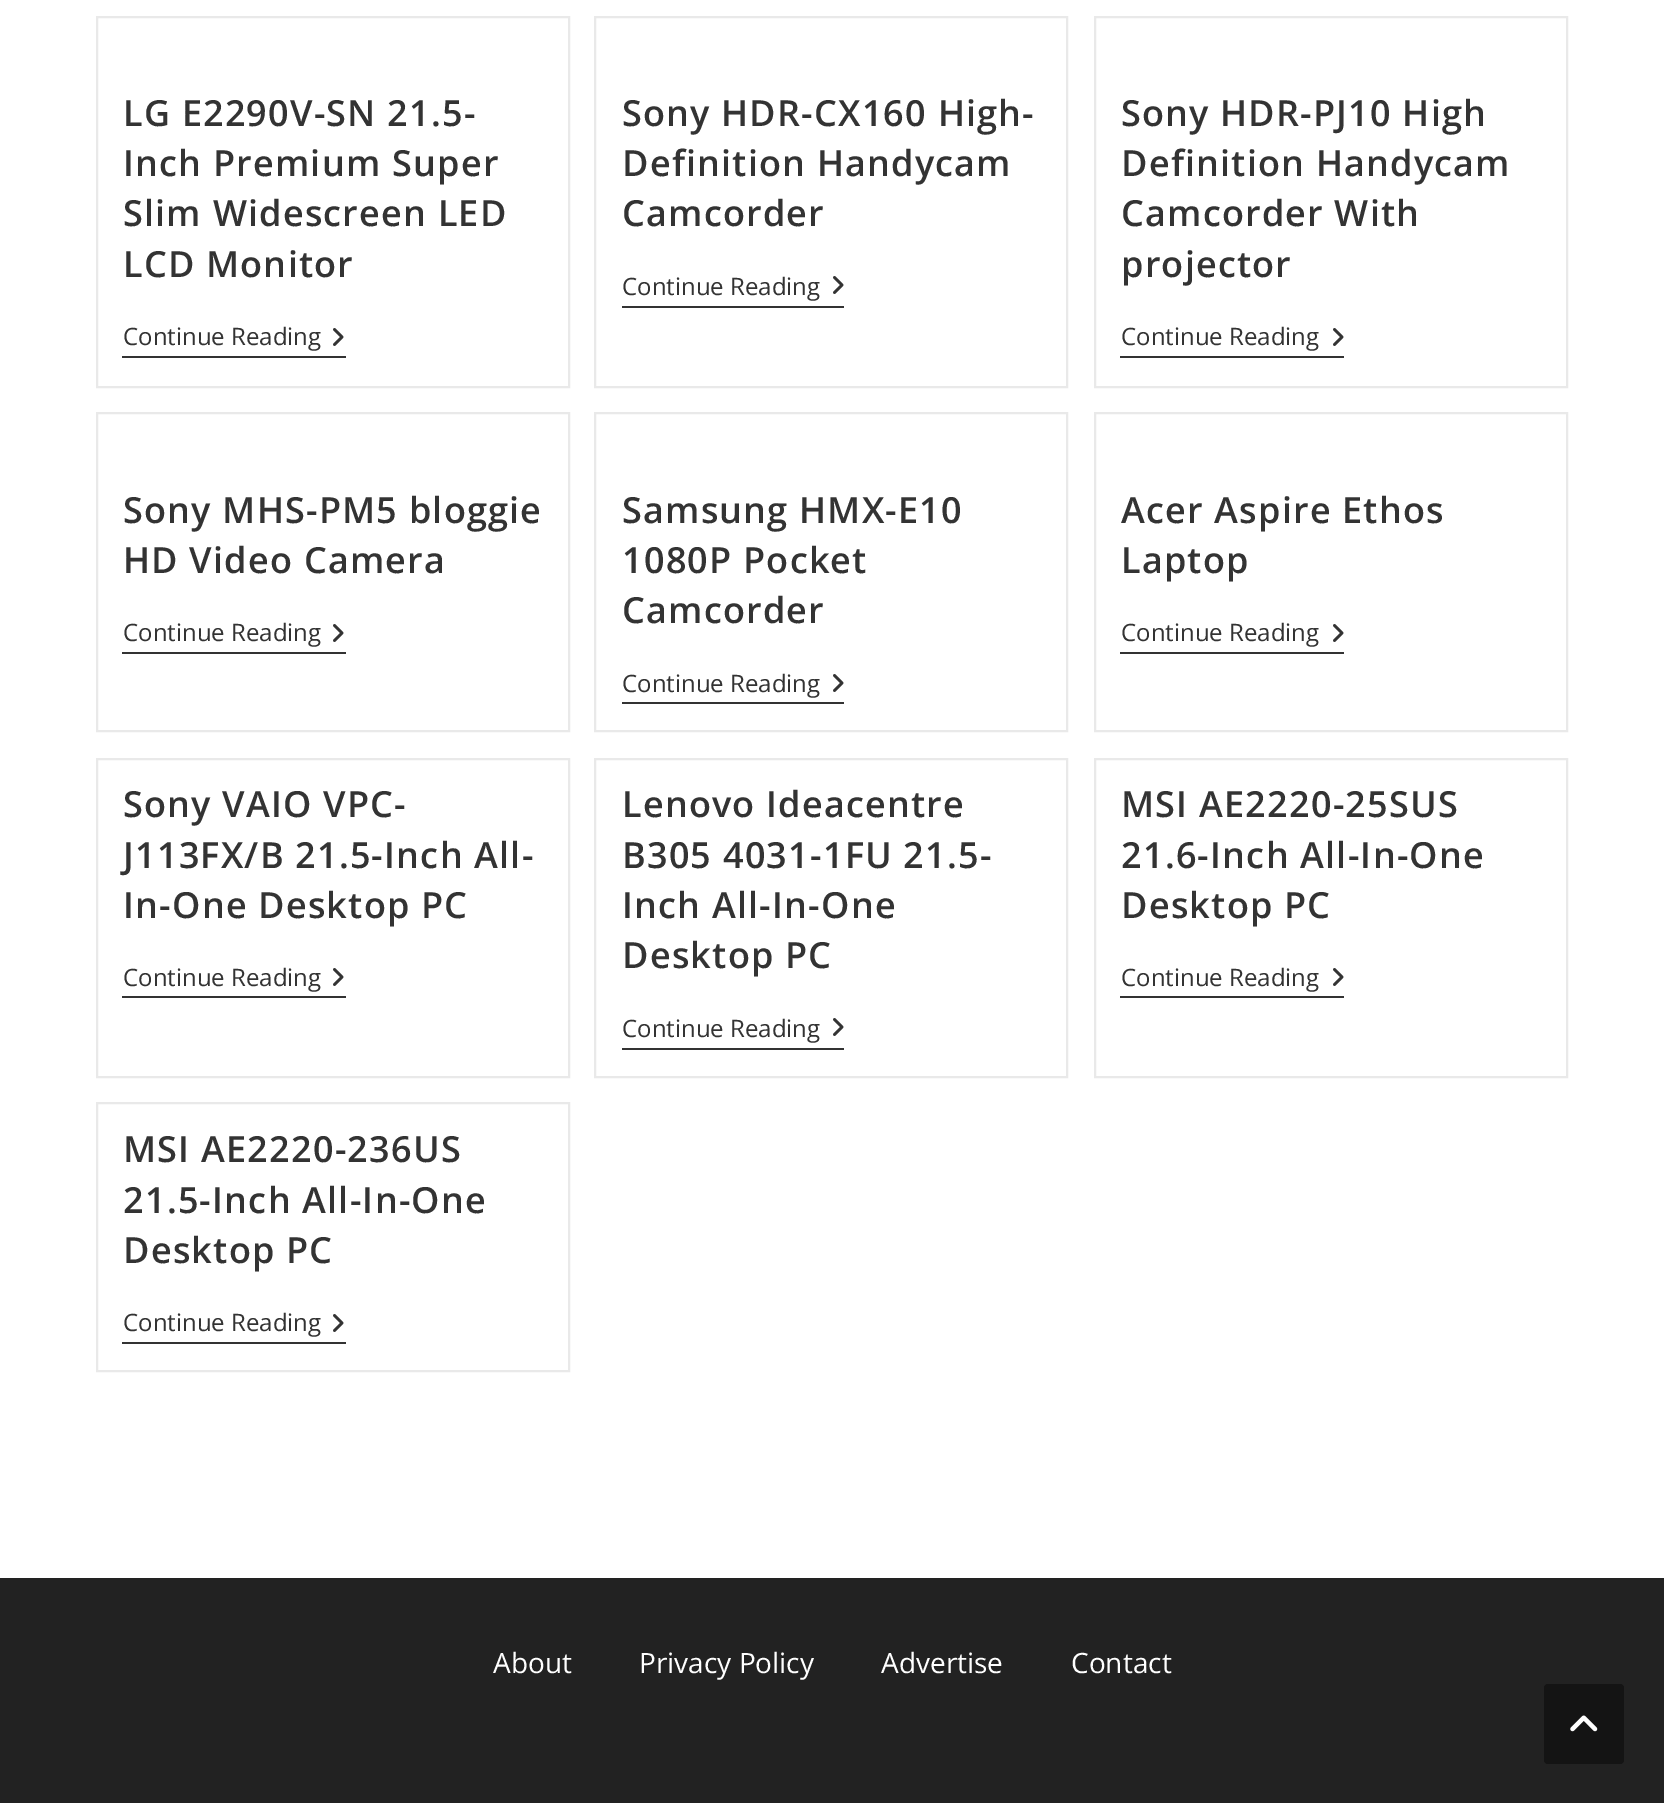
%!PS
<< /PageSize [1664 1803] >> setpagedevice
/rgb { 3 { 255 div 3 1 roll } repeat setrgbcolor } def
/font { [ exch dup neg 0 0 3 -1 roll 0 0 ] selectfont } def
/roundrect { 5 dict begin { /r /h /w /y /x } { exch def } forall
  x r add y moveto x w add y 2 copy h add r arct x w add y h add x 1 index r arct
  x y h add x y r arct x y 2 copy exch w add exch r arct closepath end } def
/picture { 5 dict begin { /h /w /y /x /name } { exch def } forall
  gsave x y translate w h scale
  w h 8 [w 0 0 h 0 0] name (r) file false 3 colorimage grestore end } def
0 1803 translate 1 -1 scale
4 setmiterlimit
255 255 255 rgb
0 0 1664 1803 rectfill
233 233 233 rgb
2 setlinewidth
97 17 472 370 rectstroke
51 51 51 rgb
122 356 224 2 rectfill
(img/1.rgb) 333 328 11 18 picture
233 233 233 rgb
595 17 472 370 rectstroke
51 51 51 rgb
622 306 222 2 rectfill
(img/1.rgb) 833 276 11 18 picture
233 233 233 rgb
1095 17 472 370 rectstroke
51 51 51 rgb
1120 356 224 2 rectfill
(img/1.rgb) 1333 328 11 18 picture
233 233 233 rgb
97 413 472 318 rectstroke
51 51 51 rgb
122 652 224 2 rectfill
(img/1.rgb) 333 624 11 18 picture
233 233 233 rgb
595 413 472 318 rectstroke
51 51 51 rgb
622 702 222 2 rectfill
(img/1.rgb) 833 674 11 18 picture
233 233 233 rgb
1095 413 472 318 rectstroke
51 51 51 rgb
1120 652 224 2 rectfill
(img/1.rgb) 1333 624 11 18 picture
233 233 233 rgb
97 759 472 318 rectstroke
51 51 51 rgb
122 996 224 2 rectfill
(img/1.rgb) 333 968 11 18 picture
233 233 233 rgb
595 759 472 318 rectstroke
51 51 51 rgb
622 1048 222 2 rectfill
(img/1.rgb) 833 1018 11 18 picture
233 233 233 rgb
1095 759 472 318 rectstroke
51 51 51 rgb
1120 996 224 2 rectfill
(img/1.rgb) 1333 968 11 18 picture
233 233 233 rgb
97 1103 472 268 rectstroke
51 51 51 rgb
122 1342 224 2 rectfill
(img/1.rgb) 333 1314 11 18 picture
34 34 34 rgb
0 1578 1664 225 rectfill
20 20 20 rgb
1544 1684 80 80 4 roundrect fill
(img/2.rgb) 1570 1715 28 17 picture
/OpenSans-SemiBold 36 font
51 51 51 rgb
123 126 moveto 1.2 0 (LG E2290V-SN 21.5-) ashow
123 176 moveto 1.2 0 (Inch Premium Super) ashow
123 226 moveto 1.2 0 (Slim Widescreen LED) ashow
123 277 moveto 1.2 0 (LCD Monitor) ashow
/OpenSans-Regular 24 font
123 345 moveto (Continue Reading) show
/OpenSans-SemiBold 36 font
622 126 moveto 1.2 0 (Sony HDR-CX160 High-) ashow
622 176 moveto 1.2 0 (Definition Handycam) ashow
622 226 moveto 1.2 0 (Camcorder) ashow
/OpenSans-Regular 24 font
622 295 moveto (Continue Reading) show
/OpenSans-SemiBold 36 font
1121 126 moveto 1.2 0 (Sony HDR-PJ10 High) ashow
1121 176 moveto 1.2 0 (Definition Handycam) ashow
1121 226 moveto 1.2 0 (Camcorder With) ashow
1121 277 moveto 1.2 0 (projector) ashow
/OpenSans-Regular 24 font
1121 345 moveto (Continue Reading) show
/OpenSans-SemiBold 36 font
123 523 moveto 1.2 0 (Sony MHS-PM5 bloggie) ashow
123 573 moveto 1.2 0 (HD Video Camera) ashow
/OpenSans-Regular 24 font
123 641 moveto (Continue Reading) show
/OpenSans-SemiBold 36 font
622 523 moveto 1.2 0 (Samsung HMX-E10) ashow
622 573 moveto 1.2 0 (1080P Pocket) ashow
622 623 moveto 1.2 0 (Camcorder) ashow
/OpenSans-Regular 24 font
622 692 moveto (Continue Reading) show
/OpenSans-SemiBold 36 font
1121 523 moveto 1.2 0 (Acer Aspire Ethos) ashow
1121 573 moveto 1.2 0 (Laptop) ashow
/OpenSans-Regular 24 font
1121 641 moveto (Continue Reading) show
/OpenSans-SemiBold 36 font
123 817 moveto 1.2 0 (Sony VAIO VPC-) ashow
123 868 moveto 1.2 0 (J113FX/B 21.5-Inch All-) ashow
123 918 moveto 1.2 0 (In-One Desktop PC) ashow
/OpenSans-Regular 24 font
123 986 moveto (Continue Reading) show
/OpenSans-SemiBold 36 font
622 817 moveto 1.2 0 (Lenovo Ideacentre) ashow
622 868 moveto 1.2 0 (B305 4031-1FU 21.5-) ashow
622 918 moveto 1.2 0 (Inch All-In-One) ashow
622 968 moveto 1.2 0 (Desktop PC) ashow
/OpenSans-Regular 24 font
622 1037 moveto (Continue Reading) show
/OpenSans-SemiBold 36 font
1121 817 moveto 1.2 0 (MSI AE2220-25SUS) ashow
1121 868 moveto 1.2 0 (21.6-Inch All-In-One) ashow
1121 918 moveto 1.2 0 (Desktop PC) ashow
/OpenSans-Regular 24 font
1121 986 moveto (Continue Reading) show
/OpenSans-SemiBold 36 font
123 1162 moveto 1.2 0 (MSI AE2220-236US) ashow
123 1213 moveto 1.2 0 (21.5-Inch All-In-One) ashow
123 1263 moveto 1.2 0 (Desktop PC) ashow
/OpenSans-Regular 24 font
123 1331 moveto (Continue Reading) show
/OpenSans-Regular 28 font
255 255 255 rgb
[
  [(About) 493 1673]
  [(Privacy Policy) 639 1673]
  [(Advertise) 881 1673]
  [(Contact) 1071 1673]
] { aload pop moveto show } forall
showpage
